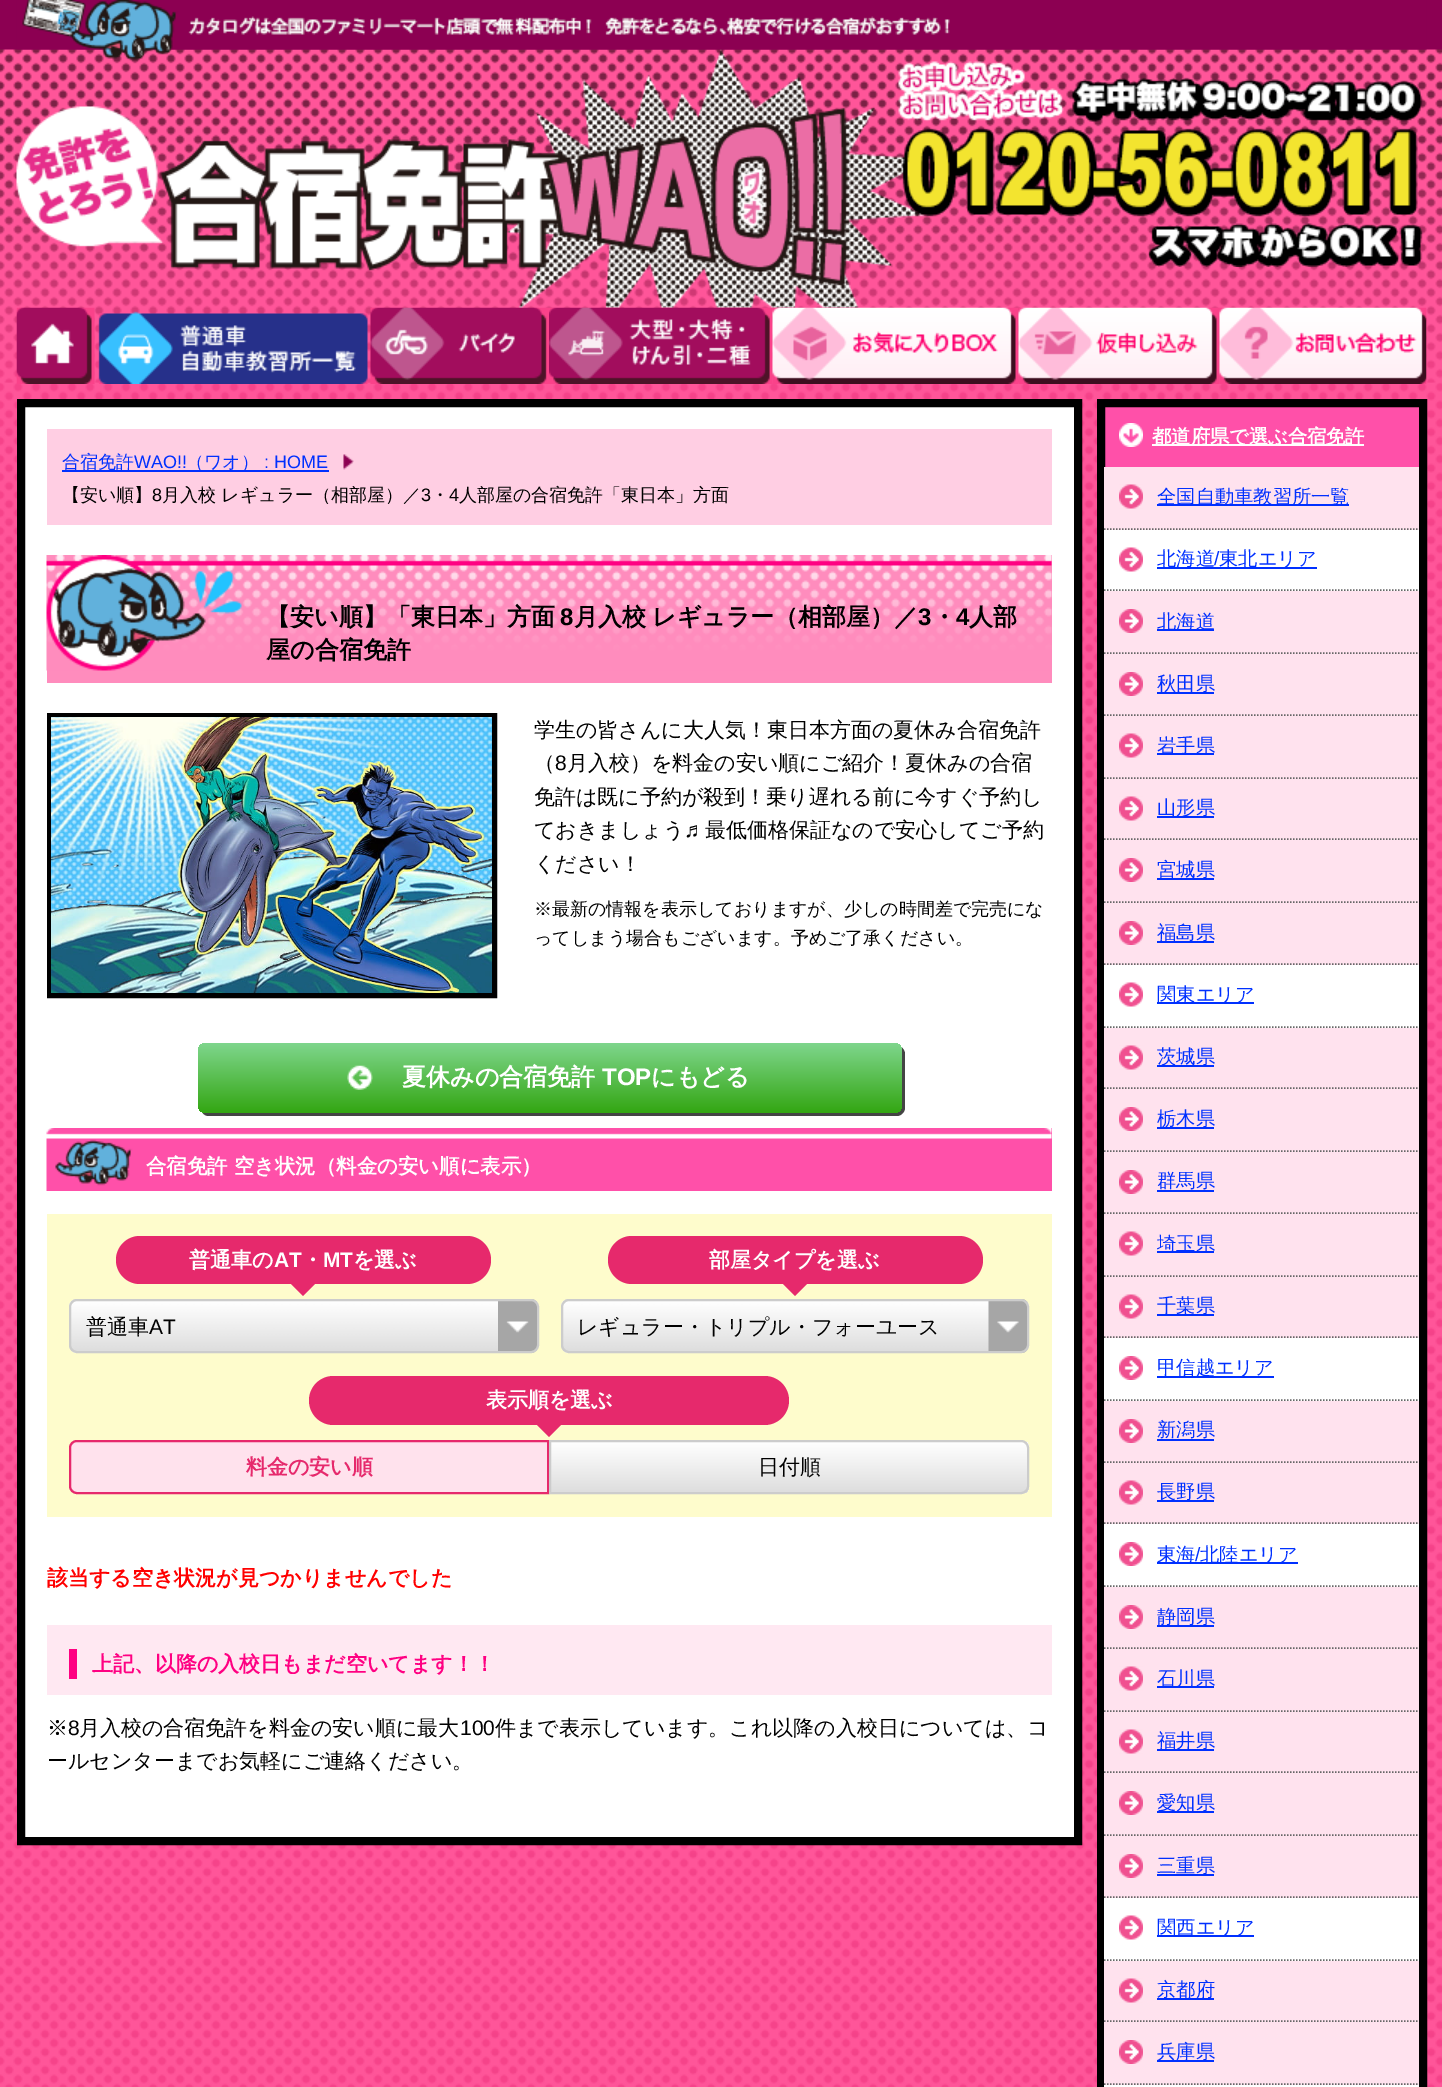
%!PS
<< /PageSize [1442 2087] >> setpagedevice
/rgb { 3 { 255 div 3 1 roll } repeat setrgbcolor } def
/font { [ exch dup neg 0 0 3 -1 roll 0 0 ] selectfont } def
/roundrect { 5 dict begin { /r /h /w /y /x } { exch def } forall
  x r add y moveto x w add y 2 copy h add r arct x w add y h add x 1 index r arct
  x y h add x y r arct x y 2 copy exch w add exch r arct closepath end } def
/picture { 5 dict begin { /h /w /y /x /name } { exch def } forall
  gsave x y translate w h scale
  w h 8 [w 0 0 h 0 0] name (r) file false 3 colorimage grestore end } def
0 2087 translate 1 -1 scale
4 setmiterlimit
255 255 255 rgb
0 0 1442 2087 rectfill
(img/1.rgb) 0 382 1442 1705 picture
(img/2.rgb) 0 0 1442 383 picture
(img/5.rgb) 16 307 79 77 picture
(img/7.rgb) 370 307 179 77 picture
(img/8.rgb) 549 307 224 77 picture
(img/9.rgb) 772 307 247 77 picture
(img/10.rgb) 1018 307 202 77 picture
(img/11.rgb) 1219 307 208 77 picture
(img/3.rgb) 16 0 1411 308 picture
(img/4.rgb) 898 61 525 206 picture
(img/6.rgb) 98 311 270 73 picture
21 403 moveto 1078 403 lineto 1078 1841 lineto 21 1841 lineto closepath gsave fill grestore
0 0 0 rgb
8 setlinewidth
stroke
255 206 227 rgb
47 429 1005 96 rectfill
0 48 255 rgb
62 470 267 2 rectfill
(img/12.rgb) 343 454 11 16 picture
255 140 189 rgb
47 555 1005 128 rectfill
(img/13.rgb) 46 555 1006 116 picture
0 0 0 rgb
5 setlinewidth
49.5 715.5 445 280 rectstroke
(img/14.rgb) 51 717 441 276 picture
68 68 68 rgb
202 1112 moveto 204 1115 206 1116 209 1116 curveto 897 1116 lineto 901 1116 905 1112 905 1108 curveto 905 1054 lineto 905 1051 903 1048 901 1047 curveto 902 1050 lineto 902 1106 lineto 902 1110 898 1113 894 1113 curveto 206 1113 lineto closepath fill
gsave 198 1043 704 70 8 roundrect clip newpath
<< /ShadingType 2 /ColorSpace /DeviceRGB /Coords [550 1043 550 1113] /Extend [true true] /Function << /FunctionType 2 /Domain [0 1] /C0 [0.498 0.839 0.553] /C1 [0.2 0.651 0.071] /N 1 >> >> shfill grestore
(img/15.rgb) 347 1065 26 25 picture
255 80 169 rgb
1051 1128 1 63 rectfill
(img/16.rgb) 46 1128 1006 63 picture
254 252 204 rgb
47 1214 1005 303 rectfill
230 41 108 rgb
116 1236 375 48 24 roundrect fill
291 1284 moveto 315 1284 lineto 303 1296 lineto closepath fill
(img/17.rgb) 69 1299 470 54 picture
204 204 204 rgb
2 setlinewidth
70 1300 468 52 7 roundrect stroke
230 41 108 rgb
608 1236 375 48 24 roundrect fill
783 1284 moveto 807 1284 lineto 795 1296 lineto closepath fill
(img/18.rgb) 561 1299 468 54 picture
204 204 204 rgb
562 1300 466 52 7 roundrect stroke
230 41 108 rgb
309 1376 480 49 24.5 roundrect fill
537 1425 moveto 561 1425 lineto 549 1437 lineto closepath fill
255 226 237 rgb
77 1441 moveto 548 1441 lineto 548 1493 lineto 77 1493 lineto 73 1493 70 1490 70 1486 curveto 70 1448 lineto 70 1444 73 1441 77 1441 curveto closepath gsave fill grestore
230 41 108 rgb
stroke
gsave
549 1440 moveto 1021 1440 lineto 1025.5 1440 1029 1443.5 1029 1448 curveto 1029 1486 lineto 1029 1490.5 1025.5 1494 1021 1494 curveto 549 1494 lineto closepath clip newpath
gsave 551 1442 moveto 1029 1442 lineto 1029 1493 lineto 551 1493 lineto closepath clip newpath
<< /ShadingType 2 /ColorSpace /DeviceRGB /Coords [789 1442 789 1493] /Extend [true true] /Function << /FunctionType 2 /Domain [0 1] /C0 [1 1 1] /C1 [0.867 0.867 0.867] /N 1 >> >> shfill grestore
grestore
204 204 204 rgb
550 1441 moveto 1021 1441 lineto 1025 1441 1028 1444 1028 1448 curveto 1028 1486 lineto 1028 1490 1025 1493 1021 1493 curveto 550 1493 lineto closepath stroke
[
  [47 1625 1005 70 255 232 242]
  [69 1649 8 30 255 0 130]
  [1105 407 314 60 255 80 169]
] { aload pop rgb rectfill } forall
0 0 0 rgb
8 setlinewidth
1101 403 322 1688 rectstroke
(img/19.rgb) 1119 423 24 24 picture
255 255 255 rgb
1152 444 212 2 rectfill
255 226 238 rgb
1104 467 315 63 rectfill
(img/20.rgb) 1119 484 24 25 picture
102 102 102 rgb
1.5 setlinewidth
[1.5 1.5] 0 setdash
1104 529 moveto 1419 529 lineto stroke
0 48 255 rgb
1157 504 192 2 rectfill
255 255 255 rgb
1104 530 315 61 rectfill
(img/21.rgb) 1119 547 24 25 picture
102 102 102 rgb
1104 590 moveto 1419 590 lineto stroke
0 48 255 rgb
1157 567 160 2 rectfill
255 226 238 rgb
1104 591 315 374 rectfill
(img/22.rgb) 1119 609 24 24 picture
102 102 102 rgb
1104 653 moveto 1419 653 lineto stroke
0 48 255 rgb
1157 629 57 2 rectfill
(img/22.rgb) 1119 672 24 24 picture
102 102 102 rgb
1104 715 moveto 1419 715 lineto stroke
0 48 255 rgb
1157 692 57 2 rectfill
(img/20.rgb) 1119 733 24 25 picture
102 102 102 rgb
1104 778 moveto 1419 778 lineto stroke
0 48 255 rgb
1157 753 57 2 rectfill
(img/20.rgb) 1119 796 24 25 picture
102 102 102 rgb
1104 839 moveto 1419 839 lineto stroke
0 48 255 rgb
1157 816 57 2 rectfill
(img/22.rgb) 1119 858 24 24 picture
102 102 102 rgb
1104 902 moveto 1419 902 lineto stroke
0 48 255 rgb
1157 878 57 2 rectfill
(img/22.rgb) 1119 921 24 24 picture
102 102 102 rgb
1104 964 moveto 1419 964 lineto stroke
0 48 255 rgb
1157 941 57 2 rectfill
255 255 255 rgb
1104 965 315 63 rectfill
(img/21.rgb) 1119 982 24 25 picture
102 102 102 rgb
1104 1027 moveto 1419 1027 lineto stroke
0 48 255 rgb
1157 1002 97 2 rectfill
255 226 238 rgb
1104 1028 315 310 rectfill
(img/20.rgb) 1119 1045 24 25 picture
102 102 102 rgb
1104 1088 moveto 1419 1088 lineto stroke
0 48 255 rgb
1157 1065 57 2 rectfill
(img/22.rgb) 1119 1107 24 24 picture
102 102 102 rgb
1104 1151 moveto 1419 1151 lineto stroke
0 48 255 rgb
1157 1127 57 2 rectfill
(img/22.rgb) 1119 1170 24 24 picture
102 102 102 rgb
1104 1213 moveto 1419 1213 lineto stroke
0 48 255 rgb
1157 1190 57 2 rectfill
(img/20.rgb) 1119 1231 24 25 picture
102 102 102 rgb
1104 1276 moveto 1419 1276 lineto stroke
0 48 255 rgb
1157 1251 57 2 rectfill
(img/20.rgb) 1119 1294 24 25 picture
102 102 102 rgb
1104 1337 moveto 1419 1337 lineto stroke
0 48 255 rgb
1157 1314 57 2 rectfill
255 255 255 rgb
1104 1338 315 63 rectfill
(img/23.rgb) 1119 1356 24 24 picture
102 102 102 rgb
1104 1400 moveto 1419 1400 lineto stroke
0 48 255 rgb
1157 1376 117 2 rectfill
255 226 238 rgb
1104 1401 315 123 rectfill
(img/22.rgb) 1119 1419 24 24 picture
102 102 102 rgb
1104 1462 moveto 1419 1462 lineto stroke
0 48 255 rgb
1157 1439 57 2 rectfill
(img/20.rgb) 1119 1480 24 25 picture
102 102 102 rgb
1104 1523 moveto 1419 1523 lineto stroke
0 48 255 rgb
1157 1500 57 2 rectfill
255 255 255 rgb
1104 1524 315 63 rectfill
(img/23.rgb) 1119 1542 24 24 picture
102 102 102 rgb
1104 1586 moveto 1419 1586 lineto stroke
0 48 255 rgb
1157 1562 141 2 rectfill
255 226 238 rgb
1104 1587 315 311 rectfill
(img/22.rgb) 1119 1605 24 24 picture
102 102 102 rgb
1104 1648 moveto 1419 1648 lineto stroke
0 48 255 rgb
1157 1625 57 2 rectfill
(img/20.rgb) 1119 1666 24 25 picture
102 102 102 rgb
1104 1711 moveto 1419 1711 lineto stroke
0 48 255 rgb
1157 1686 57 2 rectfill
(img/20.rgb) 1119 1729 24 25 picture
102 102 102 rgb
1104 1772 moveto 1419 1772 lineto stroke
0 48 255 rgb
1157 1749 57 2 rectfill
(img/22.rgb) 1119 1791 24 24 picture
102 102 102 rgb
1104 1835 moveto 1419 1835 lineto stroke
0 48 255 rgb
1157 1811 57 2 rectfill
(img/22.rgb) 1119 1854 24 24 picture
102 102 102 rgb
1104 1897 moveto 1419 1897 lineto stroke
0 48 255 rgb
1157 1874 57 2 rectfill
255 255 255 rgb
1104 1898 315 63 rectfill
(img/21.rgb) 1119 1915 24 25 picture
102 102 102 rgb
1104 1960 moveto 1419 1960 lineto stroke
0 48 255 rgb
1157 1935 97 2 rectfill
255 226 238 rgb
1104 1961 315 124 rectfill
(img/20.rgb) 1119 1978 24 25 picture
102 102 102 rgb
1104 2021 moveto 1419 2021 lineto stroke
0 48 255 rgb
1157 1998 57 2 rectfill
(img/22.rgb) 1119 2040 24 24 picture
102 102 102 rgb
1104 2084 moveto 1419 2084 lineto stroke
0 48 255 rgb
1157 2060 57 2 rectfill
255 255 255 rgb
1104 2085 315 2 rectfill
/WenQuanYiZenHei-Medium 18 font
0 48 255 rgb
62 468 moveto (合宿免許) show
/LiberationSans-Regular 18 font
134 468 moveto (WAO!!) show
/WenQuanYiZenHei-Medium 18 font
186 468 moveto (（ワオ）) show
/LiberationSans-Regular 18 font
264 468 moveto (: HOME) show
/WenQuanYiZenHei-Medium 18 font
0 0 0 rgb
62 501 moveto (【安い順】) show
/LiberationSans-Regular 18 font
152 501 moveto (8) show
/WenQuanYiZenHei-Medium 18 font
162 501 moveto (月入校 レギュラー（相部屋）／) show
/LiberationSans-Regular 18 font
421 501 moveto (3) show
/WenQuanYiZenHei-Medium 18 font
431 501 moveto (・) show
/LiberationSans-Regular 18 font
449 501 moveto (4) show
/WenQuanYiZenHei-Medium 18 font
459 501 moveto (人部屋の合宿免許「東日本」方面) show
/WenQuanYiZenHei-Bold 24 font
266 625 moveto (【安い順】「東日本」方面) show
/LiberationSans-Bold 24 font
560 625 moveto (8) show
/WenQuanYiZenHei-Bold 24 font
574 625 moveto -1 0 32 (月入校 レギュラー（相部屋）／) widthshow
/LiberationSans-Bold 24 font
918 625 moveto (3) show
/WenQuanYiZenHei-Bold 24 font
932 625 moveto (・) show
/LiberationSans-Bold 24 font
956 625 moveto (4) show
/WenQuanYiZenHei-Bold 24 font
969 625 moveto (人部) show
266 658 moveto (屋の合宿免許) show
/WenQuanYiZenHei-Medium 21 font
534 737 moveto (学生の皆さんに大人気！東日本方面の夏休み合宿免許) show
534 770 moveto (（) show
/LiberationSans-Regular 21 font
555 770 moveto (8) show
/WenQuanYiZenHei-Medium 21 font
[
  [(月入校）を料金の安い順にご紹介！夏休みの合宿) 567 770]
  [(免許は既に予約が殺到！乗り遅れる前に今すぐ予約し) 534 804]
  [(ておきましょう) 534 837]
] { aload pop moveto show } forall
/LiberationSans-Regular 21 font
684 837 moveto (♬) show
/WenQuanYiZenHei-Medium 21 font
705 837 moveto (最低価格保証なので安心してご予約) show
534 871 moveto (ください！) show
/WenQuanYiZenHei-Medium 18 font
534 915 moveto (※最新の情報を表示しておりますが、少しの時間差で完売にな) show
534 944 moveto (ってしまう場合もございます。予めご了承ください。) show
/WenQuanYiZenHei-Bold 24 font
255 255 255 rgb
402 1085 moveto (夏休みの合宿免許) show
/LiberationSans-Bold 24 font
602 1085 moveto (TOP) show
/WenQuanYiZenHei-Bold 24 font
651 1085 moveto (にもどる) show
/WenQuanYiZenHei-Bold 20.4 font
146 1173 moveto (合宿免許 空き状況（料金の安い順に表示）) show
/WenQuanYiZenHei-Bold 21 font
189 1267 moveto (普通車の) show
/LiberationSans-Bold 21 font
274 1267 moveto (AT) show
/WenQuanYiZenHei-Bold 21 font
302 1267 moveto (・) show
/LiberationSans-Bold 21 font
323 1267 moveto (MT) show
/WenQuanYiZenHei-Bold 21 font
353 1267 moveto (を選ぶ) show
/WenQuanYiZenHei-Medium 21 font
0 0 0 rgb
86 1334 moveto (普通車) show
/LiberationSans-Regular 21 font
149 1334 moveto (AT) show
/WenQuanYiZenHei-Bold 21 font
255 255 255 rgb
709 1267 moveto (部屋タイプを選ぶ) show
/WenQuanYiZenHei-Medium 21 font
0 0 0 rgb
577 1334 moveto (レギュラー・トリプル・フォーユース) show
/WenQuanYiZenHei-Bold 21 font
255 255 255 rgb
486 1407 moveto (表示順を選ぶ) show
230 41 108 rgb
246 1474 moveto (料金の安い順) show
/WenQuanYiZenHei-Medium 21 font
0 0 0 rgb
758 1474 moveto (日付順) show
/WenQuanYiZenHei-Bold 21 font
255 0 0 rgb
47 1585 moveto (該当する空き状況が見つかりませんでした) show
255 0 130 rgb
92 1671 moveto (上記、以降の入校日もまだ空いてます！！) show
/WenQuanYiZenHei-Medium 21 font
0 0 0 rgb
47 1735 moveto (※) show
/LiberationSans-Regular 21 font
68 1735 moveto (8) show
/WenQuanYiZenHei-Medium 21 font
79 1735 moveto (月入校の合宿免許を料金の安い順に最大) show
/LiberationSans-Regular 21 font
460 1735 moveto (100) show
/WenQuanYiZenHei-Medium 21 font
495 1735 moveto (件まで表示しています。これ以降の入校日については、コ) show
47 1768 moveto (ールセンターまでお気軽にご連絡ください。) show
/WenQuanYiZenHei-Bold 19.25 font
255 255 255 rgb
1152 443 moveto (都道府県で選ぶ合宿免許) show
/WenQuanYiZenHei-Medium 19.25 font
0 48 255 rgb
1157 503 moveto (全国自動車教習所一覧) show
1157 565 moveto (北海道) show
/LiberationSans-Regular 19.25 font
1214 565 moveto (/) show
/WenQuanYiZenHei-Medium 19.25 font
[
  [(東北エリア) 1219 565]
  [(北海道) 1157 628]
  [(秋田県) 1157 690]
  [(岩手県) 1157 752]
  [(山形県) 1157 814]
  [(宮城県) 1157 876]
  [(福島県) 1157 939]
  [(関東エリア) 1157 1001]
  [(茨城県) 1157 1063]
  [(栃木県) 1157 1125]
  [(群馬県) 1157 1187]
  [(埼玉県) 1157 1250]
  [(千葉県) 1157 1312]
  [(甲信越エリア) 1157 1374]
  [(新潟県) 1157 1436]
  [(長野県) 1157 1498]
  [(東海) 1157 1561]
] { aload pop moveto show } forall
/LiberationSans-Regular 19.25 font
1195 1561 moveto (/) show
/WenQuanYiZenHei-Medium 19.25 font
[
  [(北陸エリア) 1200 1561]
  [(静岡県) 1157 1623]
  [(石川県) 1157 1685]
  [(福井県) 1157 1747]
  [(愛知県) 1157 1809]
  [(三重県) 1157 1872]
  [(関西エリア) 1157 1934]
  [(京都府) 1157 1996]
  [(兵庫県) 1157 2058]
] { aload pop moveto show } forall
showpage
